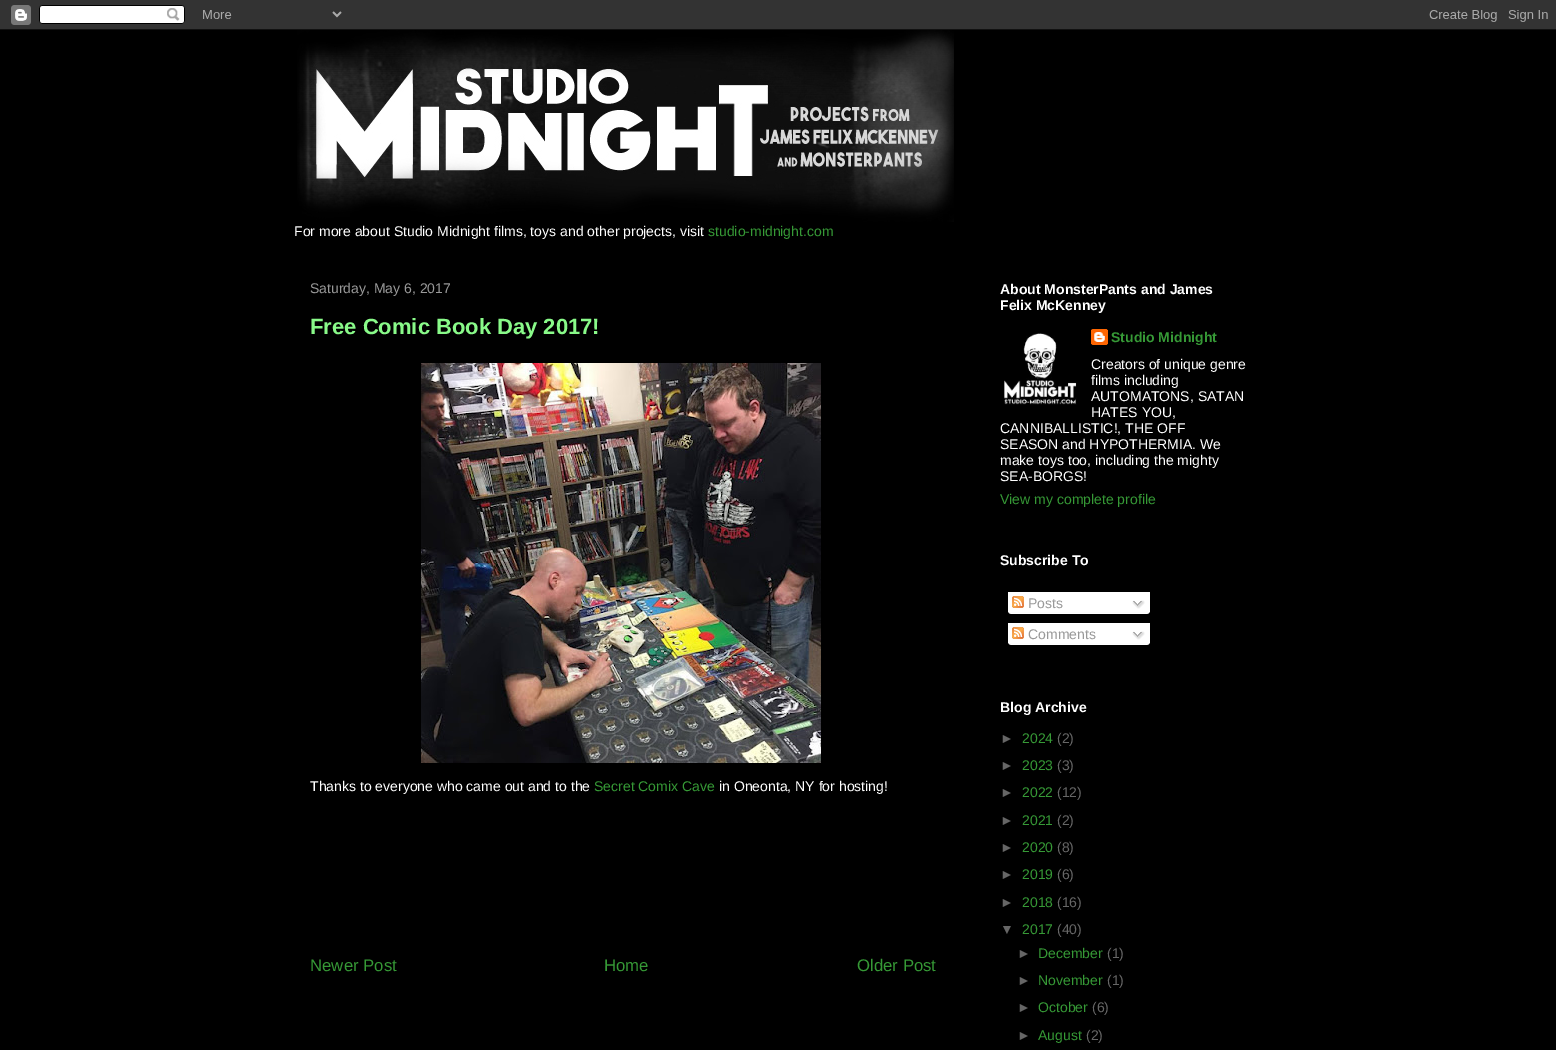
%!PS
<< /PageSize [1556 1050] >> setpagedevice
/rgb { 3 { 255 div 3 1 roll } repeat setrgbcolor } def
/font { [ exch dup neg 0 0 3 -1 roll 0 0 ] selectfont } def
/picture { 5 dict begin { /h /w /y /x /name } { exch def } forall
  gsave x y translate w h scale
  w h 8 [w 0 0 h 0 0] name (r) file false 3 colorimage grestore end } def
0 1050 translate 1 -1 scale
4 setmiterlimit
0 0 0 rgb
0 0 1556 1050 rectfill
(img/1.rgb) 0 0 1556 30 picture
(img/2.rgb) 297 30 657 192 picture
(img/3.rgb) 421 363 400 400 picture
(img/4.rgb) 1091 329 17 16 picture
(img/5.rgb) 1004 333 73 72 picture
255 255 255 rgb
1008 592 142 20 rectfill
(img/6.rgb) 1012 596 12 12 picture
(img/7.rgb) 1132 600 13 9 picture
(img/8.rgb) 1008 612 142 2 picture
1008 623 142 20 rectfill
(img/6.rgb) 1012 627 12 12 picture
(img/7.rgb) 1132 631 13 9 picture
(img/8.rgb) 1008 643 142 2 picture
/LiberationSans-Regular 14 font
294 236 moveto (For more about Studio Midnight films, toys and other projects, visit) show
54 153 54 rgb
708 236 moveto (studio-midnight.com) show
153 153 153 rgb
310 293 moveto (Saturday, May 6, 2017) show
/LiberationSans-Bold 22 font
137 250 137 rgb
310 334 moveto (Free Comic Book Day 2017!) show
/LiberationSans-Regular 14 font
255 255 255 rgb
310 791 moveto (Thanks to everyone who came out and to the) show
54 153 54 rgb
594 791 moveto (Secret Comix Cave) show
255 255 255 rgb
719 791 moveto (in Oneonta, NY for hosting!) show
/LiberationSans-Regular 16.75 font
54 153 54 rgb
[
  [(Newer Post) 310 971]
  [(Home) 604 971]
  [(Older Post) 857 971]
] { aload pop moveto show } forall
/LiberationSans-Bold 14 font
255 255 255 rgb
1000 294 moveto (About MonsterPants and James) show
1000 310 moveto (Felix McKenney) show
54 153 54 rgb
1111 342 moveto (Studio Midnight) show
/LiberationSans-Regular 14 font
255 255 255 rgb
[
  [(Creators of unique genre) 1091 369]
  [(films including) 1091 385]
  [(AUTOMATONS, SATAN) 1091 401]
  [(HATES YOU,) 1091 417]
  [(CANNIBALLISTIC!, THE OFF) 1000 433]
  [(SEASON and HYPOTHERMIA. We) 1000 449]
  [(make toys too, including the mighty) 1000 465]
  [(SEA-BORGS!) 1000 481]
] { aload pop moveto show } forall
54 153 54 rgb
1000 504 moveto (View my complete profile) show
/LiberationSans-Bold 14 font
255 255 255 rgb
1000 565 moveto (Subscribe To) show
/LiberationSans-Regular 14 font
153 153 153 rgb
1028 608 moveto (Posts) show
1028 639 moveto (Comments) show
/LiberationSans-Bold 14 font
255 255 255 rgb
1000 712 moveto (Blog Archive) show
/LiberationSans-Regular 14 font
102 102 102 rgb
1000 743 moveto (►) show
54 153 54 rgb
1022 743 moveto (2024) show
102 102 102 rgb
1057 743 moveto (\(2\)) show
1000 770 moveto (►) show
54 153 54 rgb
1022 770 moveto (2023) show
102 102 102 rgb
1057 770 moveto (\(3\)) show
1000 797 moveto (►) show
54 153 54 rgb
1022 797 moveto (2022) show
102 102 102 rgb
1057 797 moveto (\(12\)) show
1000 825 moveto (►) show
54 153 54 rgb
1022 825 moveto (2021) show
102 102 102 rgb
1057 825 moveto (\(2\)) show
1000 852 moveto (►) show
54 153 54 rgb
1022 852 moveto (2020) show
102 102 102 rgb
1057 852 moveto (\(8\)) show
1000 879 moveto (►) show
54 153 54 rgb
1022 879 moveto (2019) show
102 102 102 rgb
1057 879 moveto (\(6\)) show
1000 907 moveto (►) show
54 153 54 rgb
1022 907 moveto (2018) show
102 102 102 rgb
1057 907 moveto (\(16\)) show
1000 934 moveto (▼) show
54 153 54 rgb
1022 934 moveto (2017) show
102 102 102 rgb
1057 934 moveto (\(40\)) show
1017 958 moveto (►) show
54 153 54 rgb
1038 958 moveto (December) show
102 102 102 rgb
1107 958 moveto (\(1\)) show
1017 985 moveto (►) show
54 153 54 rgb
1038 985 moveto (November) show
102 102 102 rgb
1107 985 moveto (\(1\)) show
1017 1012 moveto (►) show
54 153 54 rgb
1038 1012 moveto (October) show
102 102 102 rgb
1092 1012 moveto (\(6\)) show
1017 1040 moveto (►) show
54 153 54 rgb
1038 1040 moveto (August) show
102 102 102 rgb
1086 1040 moveto (\(2\)) show
showpage
